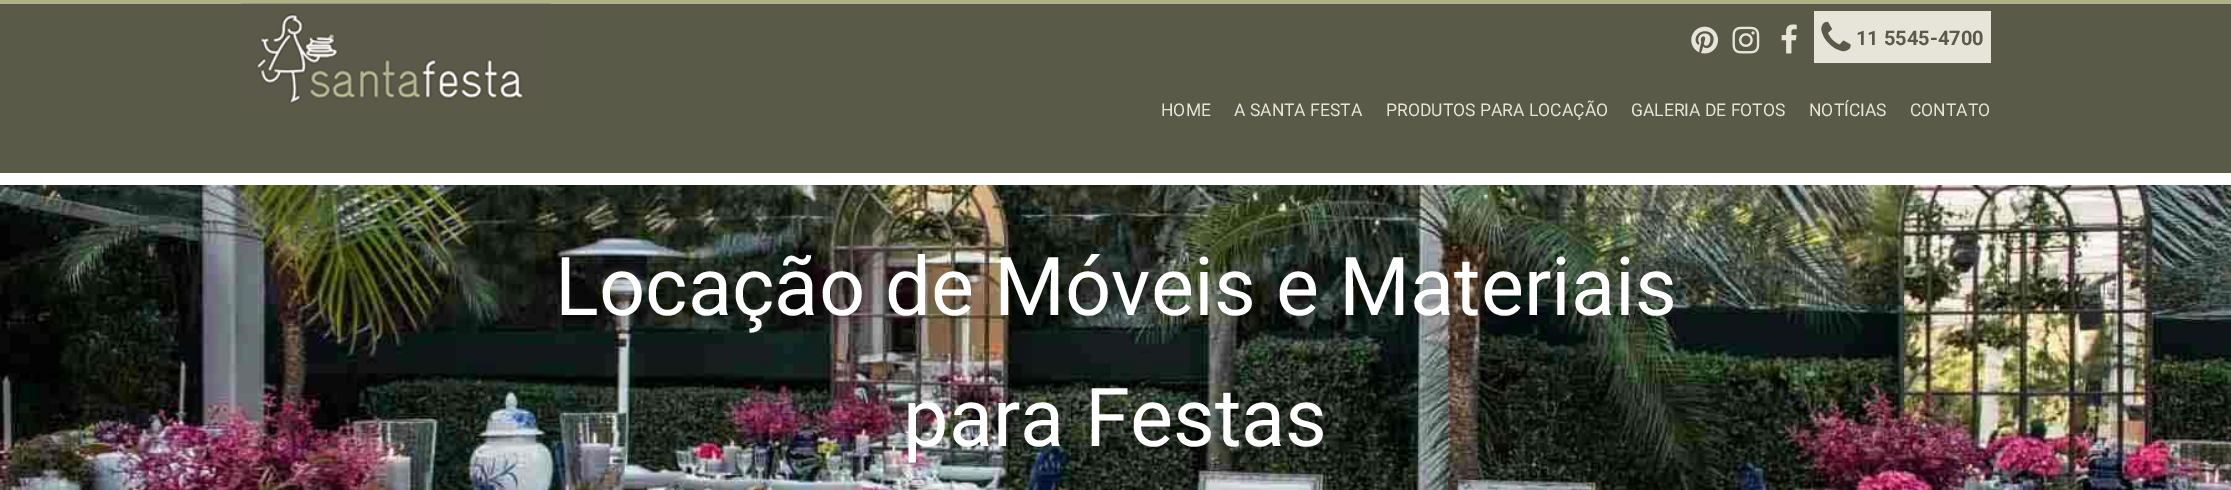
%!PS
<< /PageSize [2231 490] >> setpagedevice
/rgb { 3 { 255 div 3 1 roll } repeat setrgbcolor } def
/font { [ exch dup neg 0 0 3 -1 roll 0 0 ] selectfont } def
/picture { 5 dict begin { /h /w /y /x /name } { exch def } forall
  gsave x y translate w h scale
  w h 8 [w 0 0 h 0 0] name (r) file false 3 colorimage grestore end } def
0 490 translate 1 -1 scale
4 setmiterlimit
255 255 255 rgb
0 0 2231 490 rectfill
90 90 73 rgb
0 4 2231 169 rectfill
175 177 138 rgb
0 0 2231 4 rectfill
(img/1.rgb) 241 3 309 101 picture
(img/2.rgb) 1691 26 27 28 picture
(img/3.rgb) 1732 26 28 28 picture
(img/4.rgb) 1781 24 16 30 picture
231 228 218 rgb
1814 11 177 52 rectfill
(img/5.rgb) 1821 21 30 31 picture
(img/6.rgb) 0 185 2231 305 picture
/Roboto-Bold 20 font
90 90 73 rgb
1856 45 moveto (11 5545-4700) show
/Roboto-Regular 17.5 font
231 228 218 rgb
[
  [(HOME) 1161 116]
  [(A SANTA FESTA) 1234 116]
  [(PRODUTOS PARA LOCAÇÃO) 1386 116]
  [(GALERIA DE FOTOS) 1631 116]
  [(NOTÍCIAS) 1809 116]
  [(CONTATO) 1910 116]
] { aload pop moveto show } forall
/Roboto-Regular 81.25 font
255 255 255 rgb
555 315 moveto (Locação de Móveis e Materiais) show
903 446 moveto (para Festas) show
showpage
